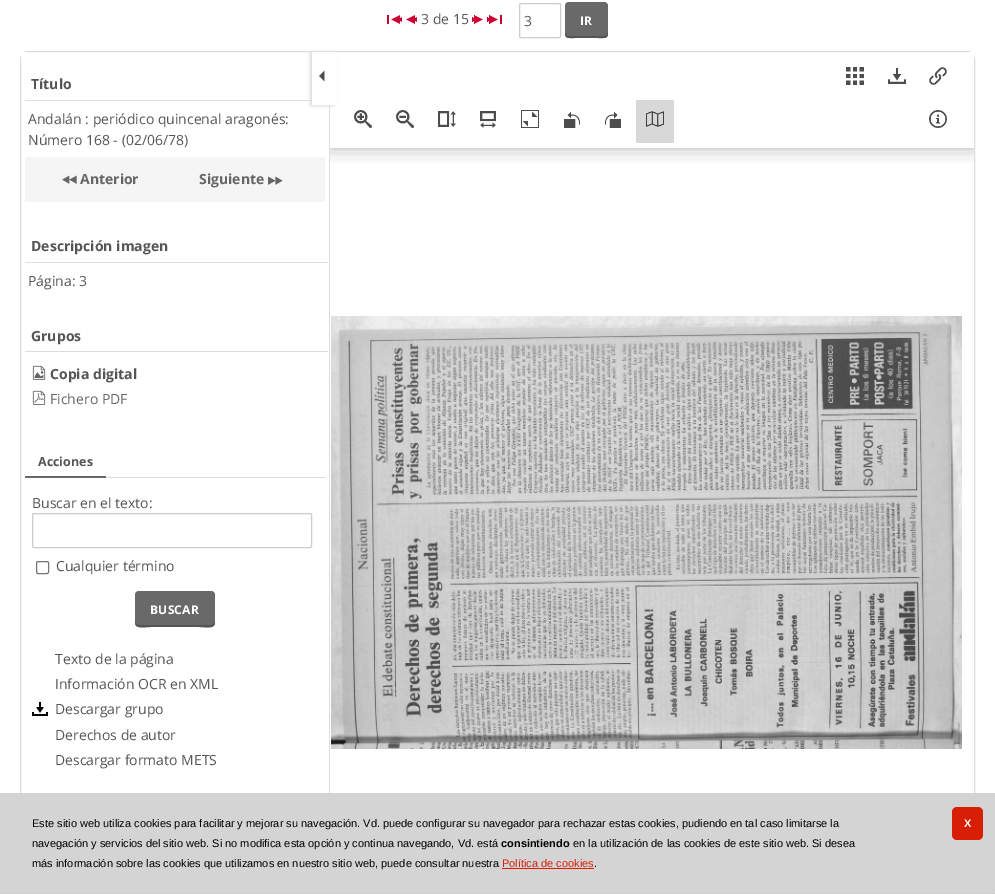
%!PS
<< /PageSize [995 894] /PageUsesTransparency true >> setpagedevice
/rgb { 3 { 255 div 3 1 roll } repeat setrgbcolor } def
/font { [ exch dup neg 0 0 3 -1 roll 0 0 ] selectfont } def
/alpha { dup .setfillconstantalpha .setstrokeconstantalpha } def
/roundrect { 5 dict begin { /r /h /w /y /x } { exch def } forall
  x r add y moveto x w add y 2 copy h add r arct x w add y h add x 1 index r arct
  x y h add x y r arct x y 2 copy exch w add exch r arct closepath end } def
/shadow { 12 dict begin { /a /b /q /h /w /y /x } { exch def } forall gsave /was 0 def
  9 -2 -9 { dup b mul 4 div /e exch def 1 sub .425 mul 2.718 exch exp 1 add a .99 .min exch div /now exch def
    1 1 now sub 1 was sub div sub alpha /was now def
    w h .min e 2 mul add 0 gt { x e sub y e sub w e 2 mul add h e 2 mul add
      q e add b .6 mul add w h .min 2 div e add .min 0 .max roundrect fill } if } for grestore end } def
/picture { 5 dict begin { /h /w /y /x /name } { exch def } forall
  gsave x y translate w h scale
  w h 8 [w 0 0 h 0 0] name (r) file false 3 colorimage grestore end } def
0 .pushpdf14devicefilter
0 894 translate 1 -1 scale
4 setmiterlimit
255 255 255 rgb
0 0 995 894 rectfill
(img/1.rgb) 387 15 15 9 picture
(img/2.rgb) 406 15 11 9 picture
(img/3.rgb) 472 15 11 9 picture
(img/4.rgb) 487 15 15 9 picture
204 204 204 rgb
519.5 3.5 41 34 1.5 roundrect stroke
105 105 105 rgb
565 2 43 36 4 roundrect fill
85 85 85 rgb
565 32 moveto 565 39 568 38 575 38 curveto 598 38 lineto 605 38 608 39 608 32 curveto 608 34 606 36 604 36 curveto 569 36 lineto 567 36 565 34 565 32 curveto closepath fill
221 221 221 rgb
20.5 51.5 954 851 7.5 roundrect stroke
[
  [21 52 6 6 255 255 255]
  [329 105 1 789 221 221 221]
  [25 100 287 1 221 221 221]
  [25 157 300 45 245 245 245]
] { aload pop rgb rectfill } forall
(img/5.rgb) 62 175 15 9 picture
(img/6.rgb) 268 176 15 9 picture
221 221 221 rgb
25 262 303 1 rectfill
25 351 303 1 rectfill
(img/7.rgb) 32 365 14 15 picture
(img/8.rgb) 32 390 14 15 picture
106 477 219 1 rectfill
105 105 105 rgb
25 476 81 2 rectfill
204 204 204 rgb
32.5 513.5 279 34 1.5 roundrect stroke
118 118 118 rgb
36.5 561.5 12 12 1.5 roundrect stroke
105 105 105 rgb
135 591 80 36 4 roundrect fill
85 85 85 rgb
135 621 moveto 135 630 143 627 151 627 curveto 199 627 lineto 207 627 215 630 215 621 curveto 215 623 213 625 211 625 curveto 139 625 lineto 137 625 135 623 135 621 curveto closepath fill
(img/9.rgb) 32 702 16 14 picture
221 221 221 rgb
310 52 24 54 0 1.5 1 shadow
255 255 255 rgb
312 52 24 53 rectfill
(img/10.rgb) 319 70 6 12 picture
968 52 6 6 rectfill
gsave
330 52 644 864 rectclip
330 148 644 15 rectclip
0 0 0 rgb
330 52 644 96 0 10 0.3 shadow
grestore
(img/11.rgb) 354 110 18 18 picture
(img/12.rgb) 396 110 18 18 picture
(img/13.rgb) 438 111 18 16 picture
(img/14.rgb) 480 111 16 17 picture
(img/15.rgb) 521 110 18 18 picture
(img/16.rgb) 564 111 16 17 picture
(img/17.rgb) 605 111 16 17 picture
216 216 216 rgb
636 100 38 43 2 roundrect fill
(img/18.rgb) 646 111 18 16 picture
(img/19.rgb) 846 67 18 18 picture
(img/20.rgb) 888 68 18 16 picture
(img/21.rgb) 929 67 18 18 picture
(img/22.rgb) 929 110 18 18 picture
(img/23.rgb) 331 316 631 433 picture
0.95 alpha
210 210 210 rgb
0 793 995 101 rectfill
1 alpha
204 204 204 rgb
[1 1] 0 setdash
0 893.5 moveto 995 893.5 lineto stroke
216 30 5 rgb
502 868 92 1 rectfill
952 807 31 33 5 roundrect fill
/OpenSans-Regular 14 font
85 85 85 rgb
421 24 moveto (3 de 15) show
524 26 moveto (3) show
/OpenSans-Bold 12 font
255 255 255 rgb
580 25 moveto 0.25 0 (IR) ashow
/OpenSans-Bold 14 font
85 85 85 rgb
31 89 moveto (Título) show
/OpenSans-Regular 14 font
28 124 moveto (Andalán : periódico quincenal aragonés:) show
28 145 moveto (Número 168 - \(02/06/78\)) show
/OpenSans-Bold 14 font
102 102 102 rgb
80 184 moveto (Anterior) show
199 184 moveto (Siguiente) show
85 85 85 rgb
31 251 moveto (Descripción imagen) show
/OpenSans-Regular 14 font
28 286 moveto (Página: 3) show
/OpenSans-Bold 14 font
31 341 moveto (Grupos) show
50 379 moveto (Copia digital) show
/OpenSans-Regular 14 font
102 102 102 rgb
50 404 moveto (Fichero PDF) show
/OpenSans-Bold 12.5 font
85 85 85 rgb
38 466 moveto (Acciones) show
/OpenSans-Regular 14 font
32 508 moveto (Buscar en el texto:) show
56 571 moveto (Cualquier término) show
/OpenSans-Bold 12 font
255 255 255 rgb
150 614 moveto 0.25 0 (BUSCAR) ashow
/OpenSans-Regular 14 font
85 85 85 rgb
[
  [(Texto de la página) 55 664]
  [(Información OCR en XML) 55 689]
  [(Descargar grupo) 55 714]
  [(Derechos de autor) 55 740]
  [(Descargar formato METS) 55 765]
] { aload pop moveto show } forall
/LiberationSans-Regular 11 font
0 0 0 rgb
32 827 moveto (Este sitio web utiliza cookies para facilitar y mejorar su navegación. Vd. puede configurar su navegador para rechazar estas cookies, pudiendo en tal caso limitarse la) show
32 847 moveto (navegación y servicios del sitio web. Si no modifica esta opción y continua navegando, Vd. está) show
/LiberationSans-Bold 11 font
501 847 moveto (consintiendo) show
/LiberationSans-Regular 11 font
573 847 moveto (en la utilización de las cookies de este sitio web. Si desea) show
32 867 moveto (más información sobre las cookies que utilizamos en nuestro sitio web, puede consultar nuestra) show
216 30 5 rgb
502 867 moveto (Política de cookies) show
0 0 0 rgb
594 867 moveto (.) show
/LiberationSans-Bold 11 font
255 255 255 rgb
964 827 moveto -1 0 (X) ashow
.poppdf14devicefilter showpage
